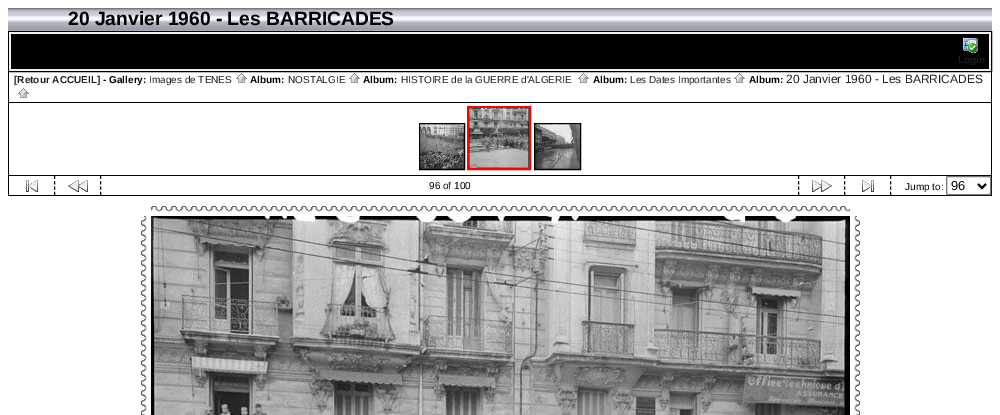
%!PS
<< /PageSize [1000 415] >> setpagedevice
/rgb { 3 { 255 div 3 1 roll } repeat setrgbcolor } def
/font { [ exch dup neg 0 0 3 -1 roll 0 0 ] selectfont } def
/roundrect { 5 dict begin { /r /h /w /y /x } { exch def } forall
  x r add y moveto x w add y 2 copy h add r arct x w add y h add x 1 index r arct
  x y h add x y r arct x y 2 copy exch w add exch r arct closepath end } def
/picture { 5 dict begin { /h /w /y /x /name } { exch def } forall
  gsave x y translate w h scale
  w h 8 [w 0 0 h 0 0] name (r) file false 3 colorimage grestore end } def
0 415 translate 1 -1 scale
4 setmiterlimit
255 255 255 rgb
0 0 1000 415 rectfill
(img/1.rgb) 8 8 984 23 picture
0 0 0 rgb
8.5 31.5 983 40 rectstroke
240 240 240 rgb
9 32 982 39 rectfill
0 0 0 rgb
11 34 978 35 rectfill
(img/2.rgb) 963 38 15 15 picture
[
  [991 72 1 124 0 0 0]
  [8 102 984 1 0 0 0]
  [8 72 1 31 0 0 0]
] { aload pop rgb rectfill } forall
(img/3.rgb) 236 73 11 10 picture
(img/3.rgb) 349 73 11 10 picture
(img/3.rgb) 578 73 11 10 picture
(img/3.rgb) 734 73 11 10 picture
(img/3.rgb) 18 88 11 10 picture
8 175 984 1 rectfill
8 103 1 73 rectfill
255 0 0 rgb
2 setlinewidth
468 107 62 62 rectstroke
0 0 0 rgb
1 setlinewidth
419.5 123.5 45 46 rectstroke
(img/4.rgb) 469 108 60 60 picture
534.5 123.5 46 46 rectstroke
(img/5.rgb) 420 124 44 45 picture
(img/6.rgb) 535 124 45 45 picture
8 195 984 1 rectfill
8 176 1 20 rectfill
[3 2.33] 0 setdash
54.5 176 moveto 54.5 195 lineto 100.5 176 moveto 100.5 195 lineto stroke
(img/7.rgb) 26 180 12 12 picture
798.5 176 moveto 798.5 195 lineto 844.5 176 moveto 844.5 195 lineto stroke
(img/8.rgb) 812 180 20 12 picture
(img/9.rgb) 68 180 20 12 picture
(img/10.rgb) 862 180 12 12 picture
890.5 176 moveto 890.5 195 lineto stroke
118 118 118 rgb
[] 0 setdash
946.5 176.5 44 18 1.5 roundrect stroke
0 0 0 rgb
2 setlinewidth
978 184 moveto 982 188 lineto 986 184 lineto stroke
(img/11.rgb) 151 206 10 6 picture
(img/12.rgb) 161 206 679 6 picture
(img/11.rgb) 840 206 10 6 picture
(img/13.rgb) 141 216 6 10 picture
(img/14.rgb) 141 226 6 189 picture
(img/15.rgb) 151 216 699 199 picture
(img/16.rgb) 854 216 6 10 picture
(img/17.rgb) 854 226 6 189 picture
/LiberationSans-Bold 19.25 font
68 25 moveto (20 Janvier 1960 - Les BARRICADES) show
/LiberationSans-Bold 10 font
32 32 32 rgb
958 63 moveto (Login) show
14 83 moveto ([Retour ACCUEIL]) show
0 0 0 rgb
103 83 moveto (- Gallery:) show
/LiberationSans-Regular 10 font
32 32 32 rgb
149 83 moveto (Images de TENES) show
/LiberationSans-Bold 10 font
0 0 0 rgb
250 83 moveto (Album:) show
/LiberationSans-Regular 10 font
32 32 32 rgb
288 83 moveto (NOSTALGIE) show
/LiberationSans-Bold 10 font
0 0 0 rgb
363 83 moveto (Album:) show
/LiberationSans-Regular 10 font
32 32 32 rgb
401 83 moveto (HISTOIRE de la GUERRE d'ALGERIE) show
/LiberationSans-Bold 10 font
0 0 0 rgb
593 83 moveto (Album:) show
/LiberationSans-Regular 10 font
32 32 32 rgb
630 83 moveto (Les Dates Importantes) show
/LiberationSans-Bold 10 font
0 0 0 rgb
749 83 moveto (Album:) show
/LiberationSans-Regular 12 font
32 32 32 rgb
786 83 moveto (20 Janvier 1960 - Les BARRICADES) show
/LiberationSans-Regular 10 font
0 0 0 rgb
429 189 moveto (96 of 100) show
905 190 moveto (Jump to:) show
/LiberationSans-Regular 13 font
951 190 moveto (96) show
showpage
